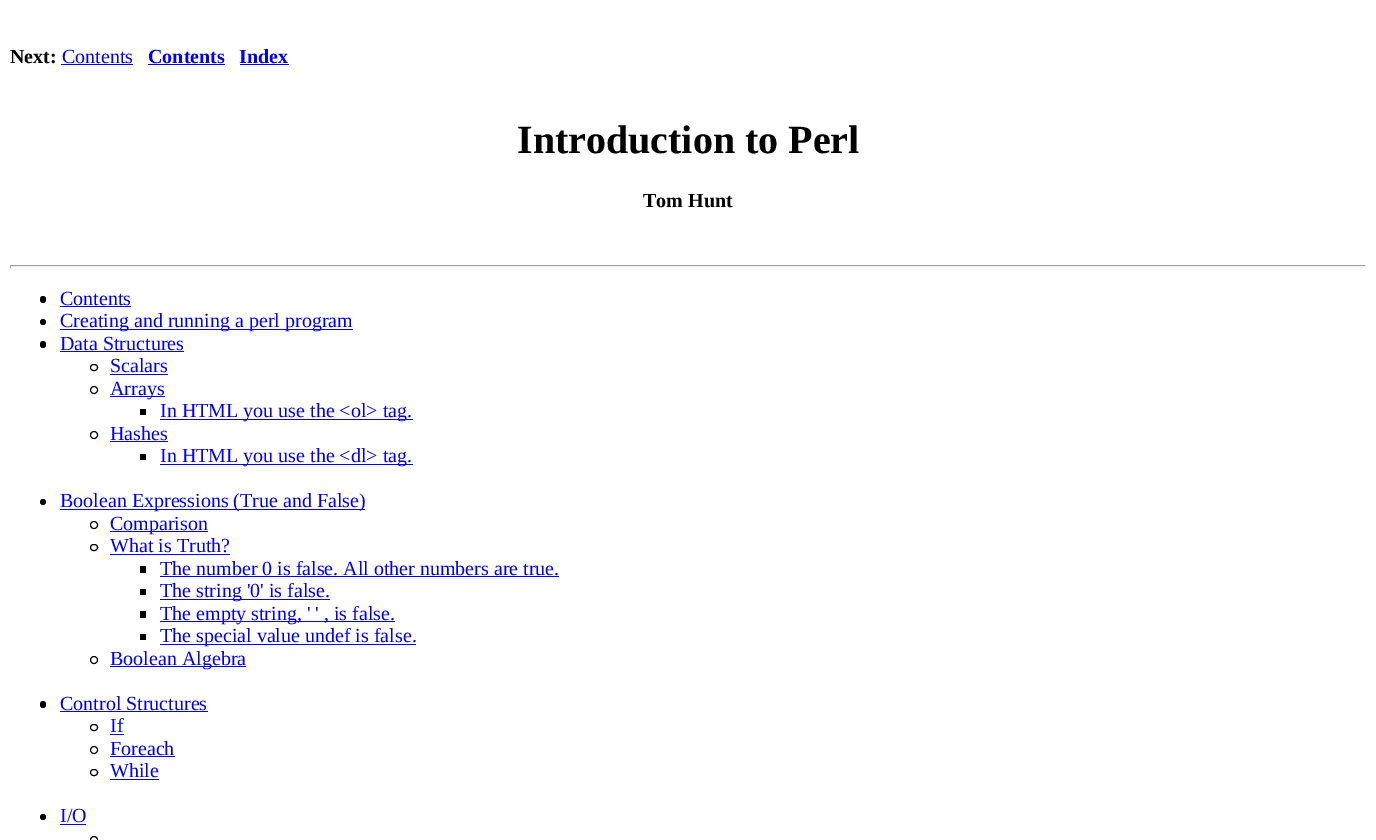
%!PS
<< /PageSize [1376 840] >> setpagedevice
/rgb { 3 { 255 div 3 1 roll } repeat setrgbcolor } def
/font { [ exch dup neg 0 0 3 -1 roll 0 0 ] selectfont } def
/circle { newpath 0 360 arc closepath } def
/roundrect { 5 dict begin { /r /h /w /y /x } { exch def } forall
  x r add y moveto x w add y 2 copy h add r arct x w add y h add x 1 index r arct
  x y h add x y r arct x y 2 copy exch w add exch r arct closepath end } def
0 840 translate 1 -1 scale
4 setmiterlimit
255 255 255 rgb
0 0 1376 840 rectfill
[
  [61 64 72 1 0 0 238]
  [148 64 77 1 0 0 238]
  [240 64 49 1 0 0 238]
  [10 265 1356 1 159 159 159]
  [1365 265 1 3 238 238 238]
  [10 266 1356 1 238 238 238]
  [10 265 1 3 159 159 159]
] { aload pop rgb rectfill } forall
0 0 0 rgb
40 296 6 7 3 roundrect fill
0 0 238 rgb
60 306 71 1 rectfill
0 0 0 rgb
43 322 3 circle fill
0 0 238 rgb
60 329 293 1 rectfill
0 0 0 rgb
40 341 6 7 3 roundrect fill
0 0 238 rgb
60 351 124 1 rectfill
0 0 0 rgb
90.5 364.5 7 6 3 roundrect stroke
0 0 238 rgb
110 374 58 1 rectfill
0 0 0 rgb
94 390 3.5 circle stroke
[
  [110 396 55 1 0 0 238]
  [140 409 6 6 0 0 0]
  [160 419 253 1 0 0 238]
] { aload pop rgb rectfill } forall
0 0 0 rgb
94 435 3.5 circle stroke
[
  [110 441 58 1 0 0 238]
  [140 454 6 6 0 0 0]
  [160 464 253 1 0 0 238]
] { aload pop rgb rectfill } forall
0 0 0 rgb
43 502 3 circle fill
0 0 238 rgb
60 509 305 1 rectfill
0 0 0 rgb
94 525 3.5 circle stroke
0 0 238 rgb
110 531 98 1 rectfill
0 0 0 rgb
90.5 544.5 7 6 3 roundrect stroke
[
  [110 554 120 1 0 0 238]
  [140 566 6 7 0 0 0]
  [160 576 399 1 0 0 238]
  [140 589 6 6 0 0 0]
  [160 599 170 1 0 0 238]
  [140 611 6 7 0 0 0]
  [160 621 235 1 0 0 238]
  [140 634 6 6 0 0 0]
  [160 644 256 1 0 0 238]
] { aload pop rgb rectfill } forall
0 0 0 rgb
94 660 3.5 circle stroke
0 0 238 rgb
110 666 136 1 rectfill
0 0 0 rgb
40 701 6 7 3 roundrect fill
0 0 238 rgb
60 711 148 1 rectfill
0 0 0 rgb
90.5 724.5 7 6 3 roundrect stroke
0 0 238 rgb
110 734 14 1 rectfill
0 0 0 rgb
94 750 3.5 circle stroke
0 0 238 rgb
110 756 65 1 rectfill
0 0 0 rgb
90.5 769.5 7 6 3 roundrect stroke
0 0 238 rgb
110 779 49 1 rectfill
0 0 0 rgb
43 817 3 circle fill
0 0 238 rgb
60 824 26 1 rectfill
0 0 0 rgb
94 840 3.5 circle stroke
/LiberationSerif-Bold 20 font
10 63 moveto (Next:) show
/LiberationSerif-Regular 20 font
0 0 238 rgb
62 63 moveto (Contents) show
/LiberationSerif-Bold 20 font
148 63 moveto (Contents) show
239 63 moveto (Index) show
/LiberationSerif-Bold 40 font
0 0 0 rgb
517 153 moveto (Introduction to Perl) show
/LiberationSerif-Bold 20 font
643 207 moveto (Tom Hunt) show
/LiberationSerif-Regular 20 font
0 0 238 rgb
[
  [(Contents) 60 305]
  [(Creating and running a perl program) 60 327]
  [(Data Structures) 60 350]
  [(Scalars) 110 372]
  [(Arrays) 110 395]
  [(In HTML you use the <ol> tag.) 160 417]
  [(Hashes) 110 440]
  [(In HTML you use the <dl> tag.) 160 462]
  [(Boolean Expressions \(True and False\)) 60 507]
  [(Comparison) 110 530]
  [(What is Truth?) 110 552]
  [(The number 0 is false. All other numbers are true.) 160 575]
  [(The string '0' is false.) 160 597]
  [(The empty string, ' ' , is false.) 160 620]
  [(The special value undef is false.) 160 642]
  [(Boolean Algebra) 110 665]
  [(Control Structures) 60 710]
  [(If) 110 732]
  [(Foreach) 110 755]
  [(While) 110 777]
  [(I/O) 60 822]
] { aload pop moveto show } forall
showpage
